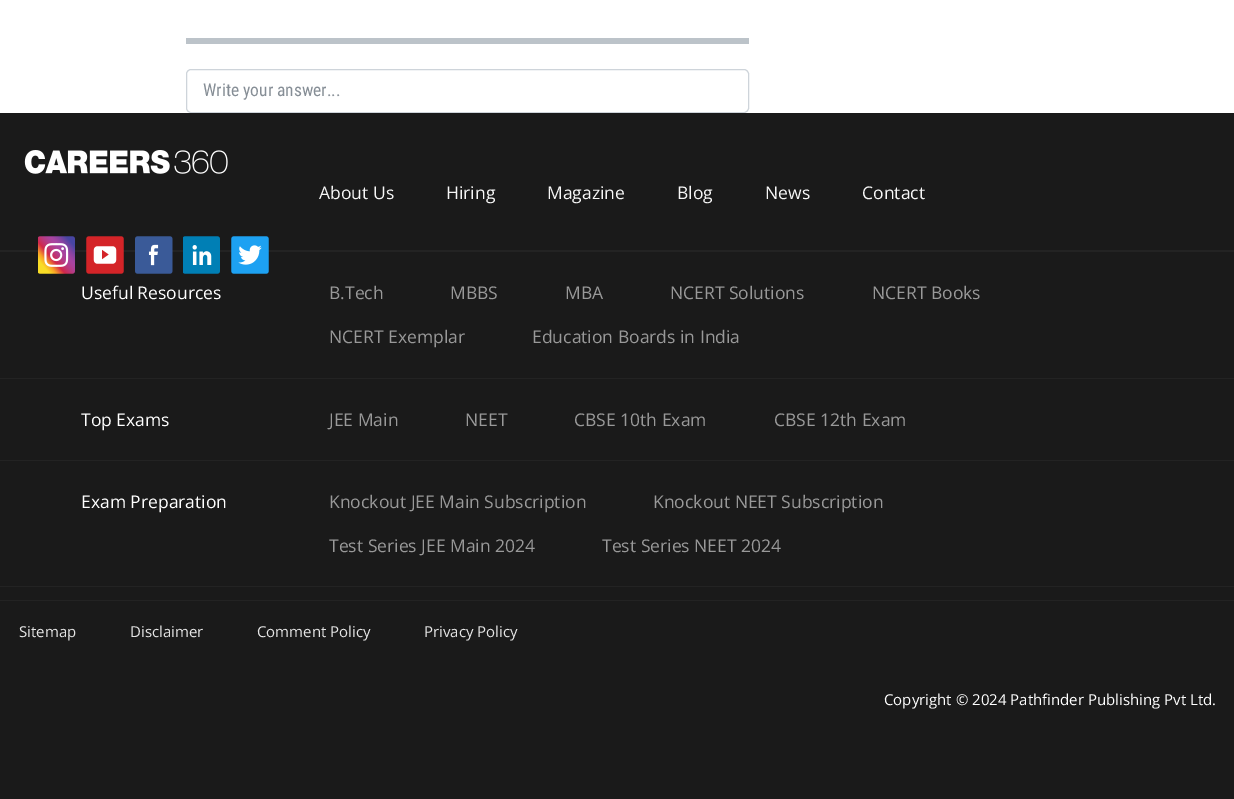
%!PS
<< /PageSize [1234 799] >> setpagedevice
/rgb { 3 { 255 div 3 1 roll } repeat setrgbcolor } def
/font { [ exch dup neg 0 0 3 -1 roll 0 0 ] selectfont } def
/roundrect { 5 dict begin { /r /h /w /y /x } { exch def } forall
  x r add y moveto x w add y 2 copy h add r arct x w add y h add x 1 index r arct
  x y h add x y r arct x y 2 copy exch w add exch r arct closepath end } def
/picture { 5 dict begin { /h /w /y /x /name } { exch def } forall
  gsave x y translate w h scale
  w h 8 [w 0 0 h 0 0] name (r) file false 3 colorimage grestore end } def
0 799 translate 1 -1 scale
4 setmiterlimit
255 255 255 rgb
0 0 1234 799 rectfill
188 195 201 rgb
186 38 563 6 rectfill
206 212 218 rgb
186.5 69.5 562 43 4.5 roundrect stroke
26 26 26 rgb
0 113 1234 686 rectfill
(img/1.rgb) 24 150 204 24 picture
35 35 35 rgb
0 250 1234 2 rectfill
(img/2.rgb) 38 236 37 38 picture
(img/3.rgb) 86 236 38 38 picture
(img/4.rgb) 135 236 38 38 picture
(img/5.rgb) 183 236 37 38 picture
(img/6.rgb) 231 236 38 38 picture
[
  [0 586 1234 1 35 35 35]
  [0 378 1234 1 35 35 35]
  [0 460 1234 1 35 35 35]
  [0 600 1234 1 35 35 35]
] { aload pop rgb rectfill } forall
/RobotoCondensed-Regular 17.5 font
134 142 150 rgb
203 96 moveto (Write your answer...) show
/OpenSans-Regular 17.5 font
247 247 247 rgb
[
  [(About Us) 319 199]
  [(Hiring) 446 199]
  [(Magazine) 547 199]
  [(Blog) 677 199]
  [(News) 765 199]
  [(Contact) 862 199]
] { aload pop moveto show } forall
255 255 255 rgb
81 299 moveto (Useful Resources) show
153 153 153 rgb
[
  [(B.Tech) 329 299]
  [(MBBS) 450 299]
  [(MBA) 565 299]
  [(NCERT Solutions) 670 299]
  [(NCERT Books) 872 299]
  [(NCERT Exemplar) 329 343]
  [(Education Boards in India) 532 343]
] { aload pop moveto show } forall
255 255 255 rgb
81 426 moveto (Top Exams) show
153 153 153 rgb
[
  [(JEE Main) 329 426]
  [(NEET) 465 426]
  [(CBSE 10th Exam) 574 426]
  [(CBSE 12th Exam) 774 426]
] { aload pop moveto show } forall
255 255 255 rgb
81 508 moveto (Exam Preparation) show
153 153 153 rgb
[
  [(Knockout JEE Main Subscription) 329 508]
  [(Knockout NEET Subscription) 653 508]
  [(Test Series JEE Main 2024) 329 552]
  [(Test Series NEET 2024) 602 552]
] { aload pop moveto show } forall
/OpenSans-Regular 15 font
229 229 229 rgb
[
  [(Sitemap) 19 637]
  [(Disclaimer) 130 637]
  [(Comment Policy) 257 637]
  [(Privacy Policy) 424 637]
] { aload pop moveto show } forall
255 255 255 rgb
884 705 moveto (Copyright © 2024 Pathfinder Publishing Pvt Ltd.) show
showpage
